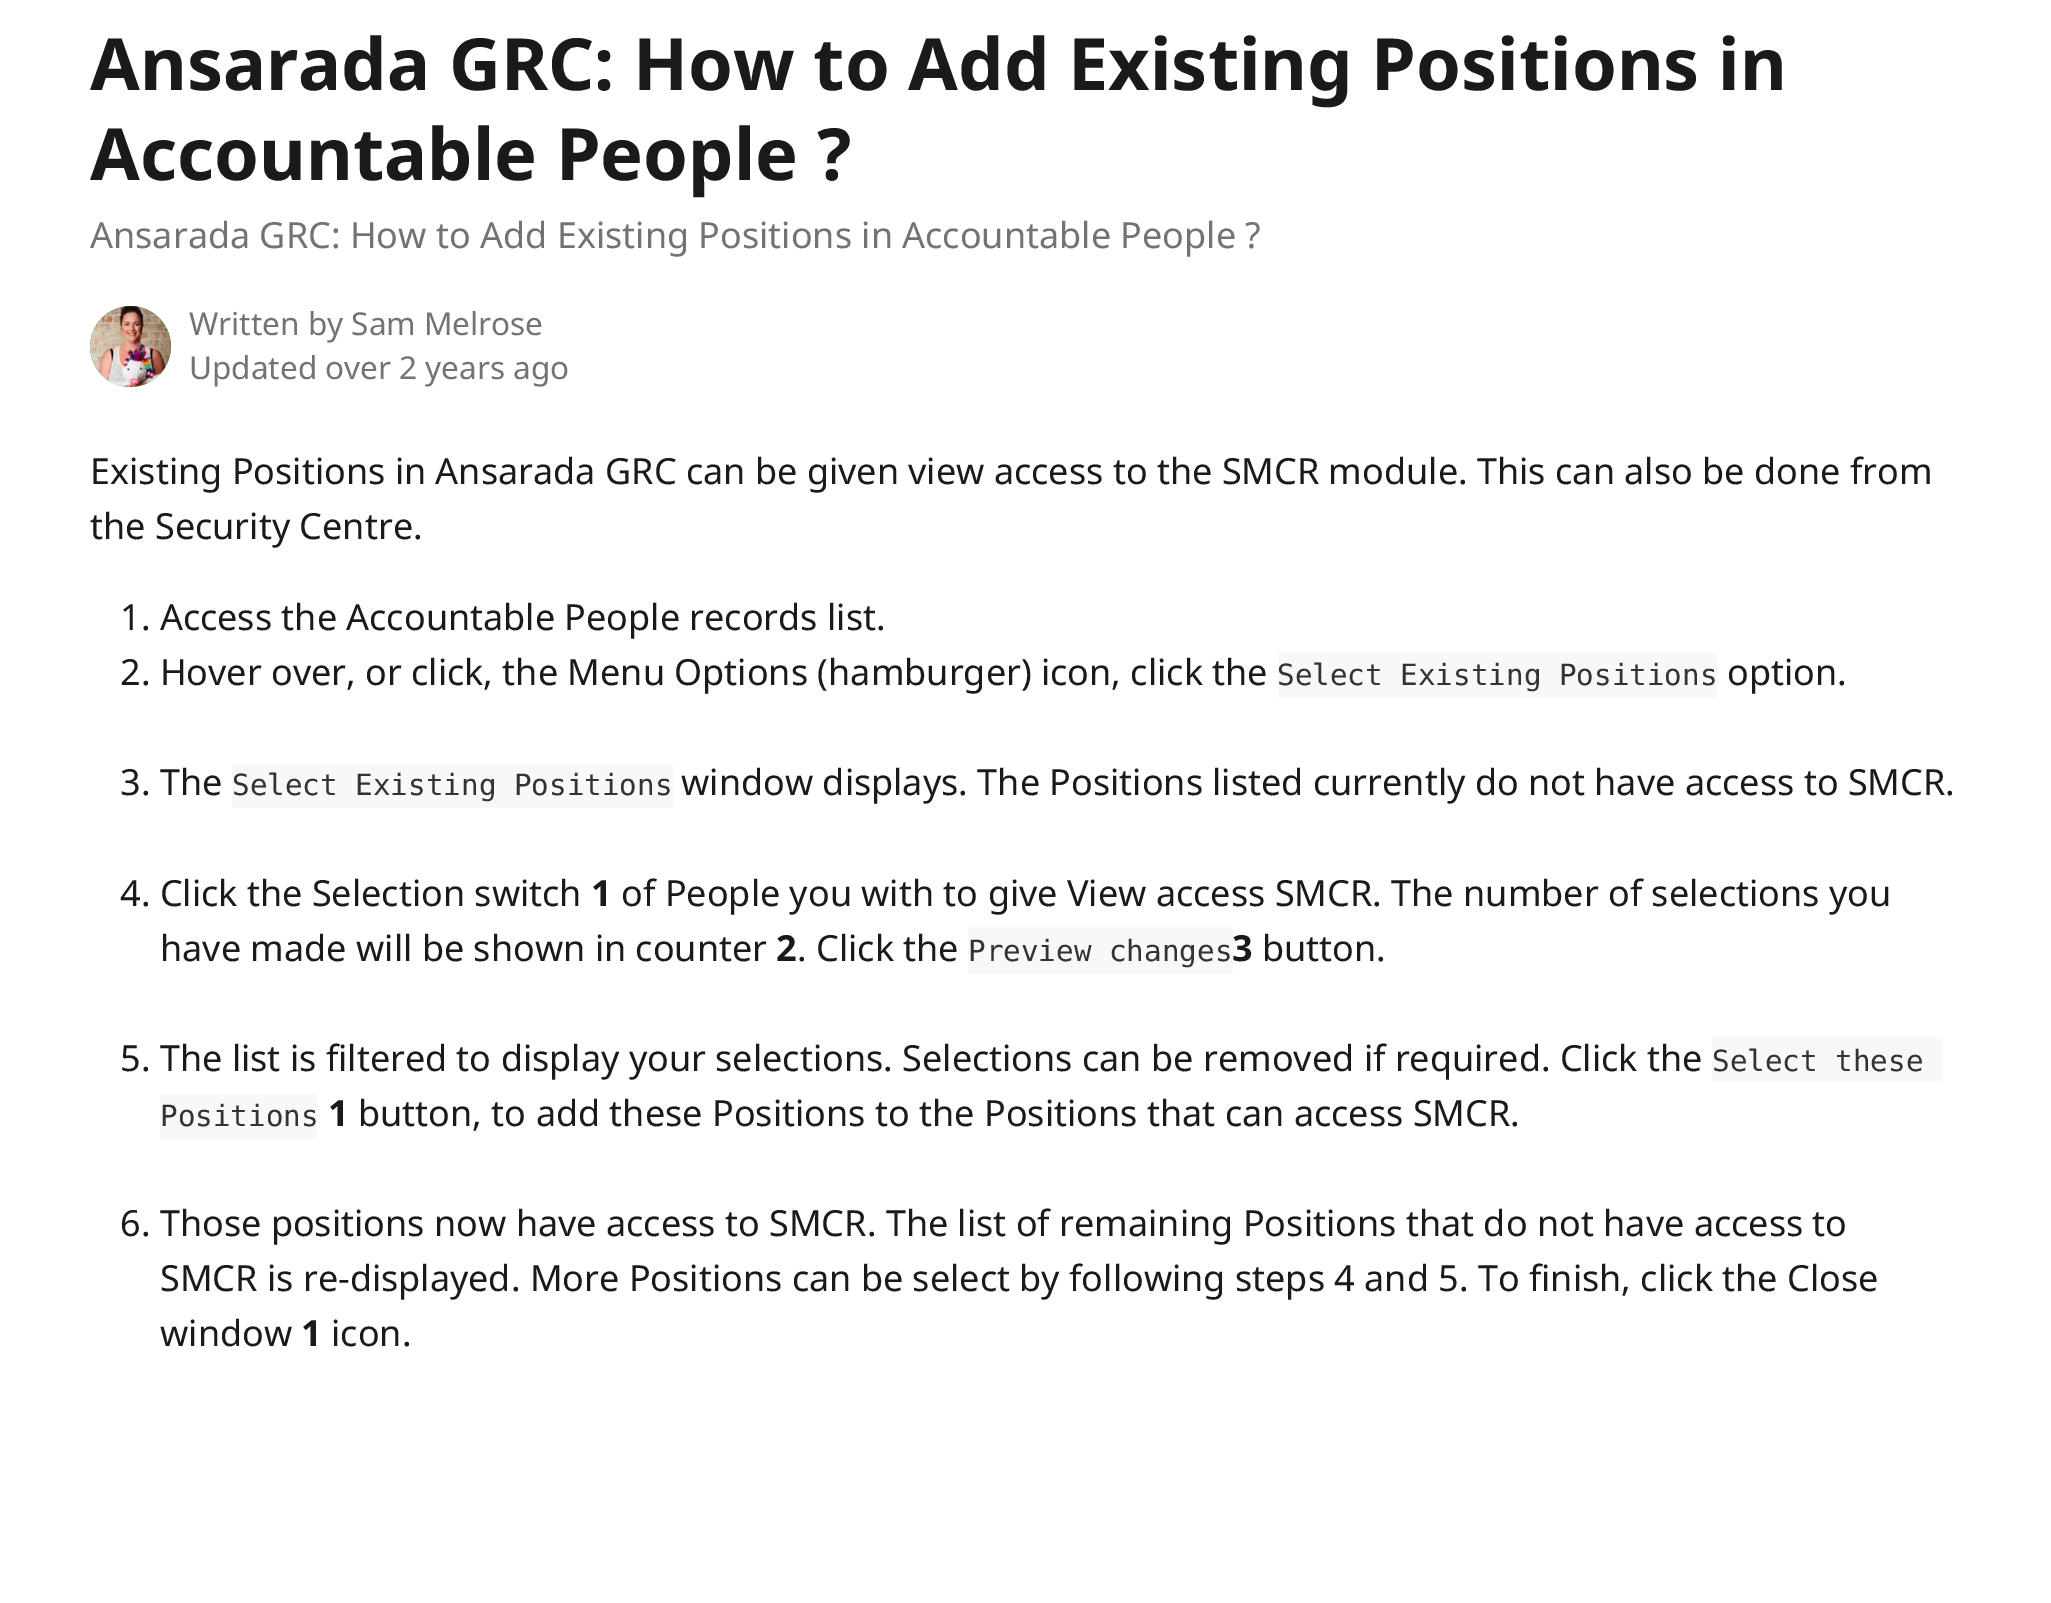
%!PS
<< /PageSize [2051 1603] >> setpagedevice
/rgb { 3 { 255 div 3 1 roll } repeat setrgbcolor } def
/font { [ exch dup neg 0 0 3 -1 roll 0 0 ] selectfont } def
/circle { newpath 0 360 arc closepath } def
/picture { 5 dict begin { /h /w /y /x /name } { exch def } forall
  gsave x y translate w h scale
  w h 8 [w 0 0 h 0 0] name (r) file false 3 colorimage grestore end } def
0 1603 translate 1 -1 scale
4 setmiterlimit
255 255 255 rgb
0 0 2051 1603 rectfill
6 172 70 rgb
130.5 346.5 40.5 circle fill
(img/1.rgb) 90 306 81 81 picture
[
  [1278 653 439 45 248 248 248]
  [232 763 441 45 248 248 248]
  [968 927 265 47 248 248 248]
  [1712 1037 230 45 248 248 248]
  [160 1094 157 45 248 248 248]
] { aload pop rgb rectfill } forall
/NotoSans-Bold 72 font
26 26 26 rgb
90 90 moveto (Ansarada GRC: How to Add Existing Positions in) show
90 180 moveto (Accountable People ?) show
/NotoSans-Regular 36 font
115 115 115 rgb
90 248 moveto (Ansarada GRC: How to Add Existing Positions in Accountable People ?) show
/NotoSans-Regular 31.5 font
189 335 moveto (Written by Sam Melrose) show
189 379 moveto (Updated over 2 years ago) show
/NotoSans-Regular 36 font
26 26 26 rgb
[
  [(Existing Positions in Ansarada GRC can be given view access to the SMCR module. This can also be done from) 90 484]
  [(the Security Centre.) 90 539]
  [(1. Access the Accountable People records list.) 120 630]
  [(2. Hover over, or click, the Menu Options \(hamburger\) icon, click the) 120 685]
] { aload pop moveto show } forall
/DejaVuSansMono-Regular 29.25 font
51 51 51 rgb
1277 685 moveto (Select Existing Positions) show
/NotoSans-Regular 36 font
26 26 26 rgb
1727 685 moveto (option.) show
120 795 moveto (3. The) show
/DejaVuSansMono-Regular 29.25 font
51 51 51 rgb
232 795 moveto (Select Existing Positions) show
/NotoSans-Regular 36 font
26 26 26 rgb
681 795 moveto (window displays. The Positions listed currently do not have access to SMCR.) show
120 906 moveto (4. Click the Selection switch) show
/NotoSans-Bold 36 font
591 906 moveto (1) show
/NotoSans-Regular 36 font
621 906 moveto (of People you with to give View access SMCR. The number of selections you) show
160 961 moveto (have made will be shown in counter) show
/NotoSans-Bold 36 font
776 961 moveto (2) show
/NotoSans-Regular 36 font
797 961 moveto (. Click the) show
/DejaVuSansMono-Regular 29.25 font
51 51 51 rgb
968 961 moveto (Preview changes) show
/NotoSans-Bold 36 font
26 26 26 rgb
1232 961 moveto (3) show
/NotoSans-Regular 36 font
1262 961 moveto (button.) show
120 1071 moveto (5. The list is filtered to display your selections. Selections can be removed if required. Click the) show
/DejaVuSansMono-Regular 29.25 font
51 51 51 rgb
1712 1071 moveto (Select these) show
160 1126 moveto (Positions) show
/NotoSans-Bold 36 font
26 26 26 rgb
328 1126 moveto (1) show
/NotoSans-Regular 36 font
[
  [(button, to add these Positions to the Positions that can access SMCR.) 358 1126]
  [(6. Those positions now have access to SMCR. The list of remaining Positions that do not have access to) 120 1236]
  [(SMCR is re-displayed. More Positions can be select by following steps 4 and 5. To finish, click the Close) 160 1291]
  [(window) 160 1346]
] { aload pop moveto show } forall
/NotoSans-Bold 36 font
301 1346 moveto (1) show
/NotoSans-Regular 36 font
331 1346 moveto (icon.) show
showpage
